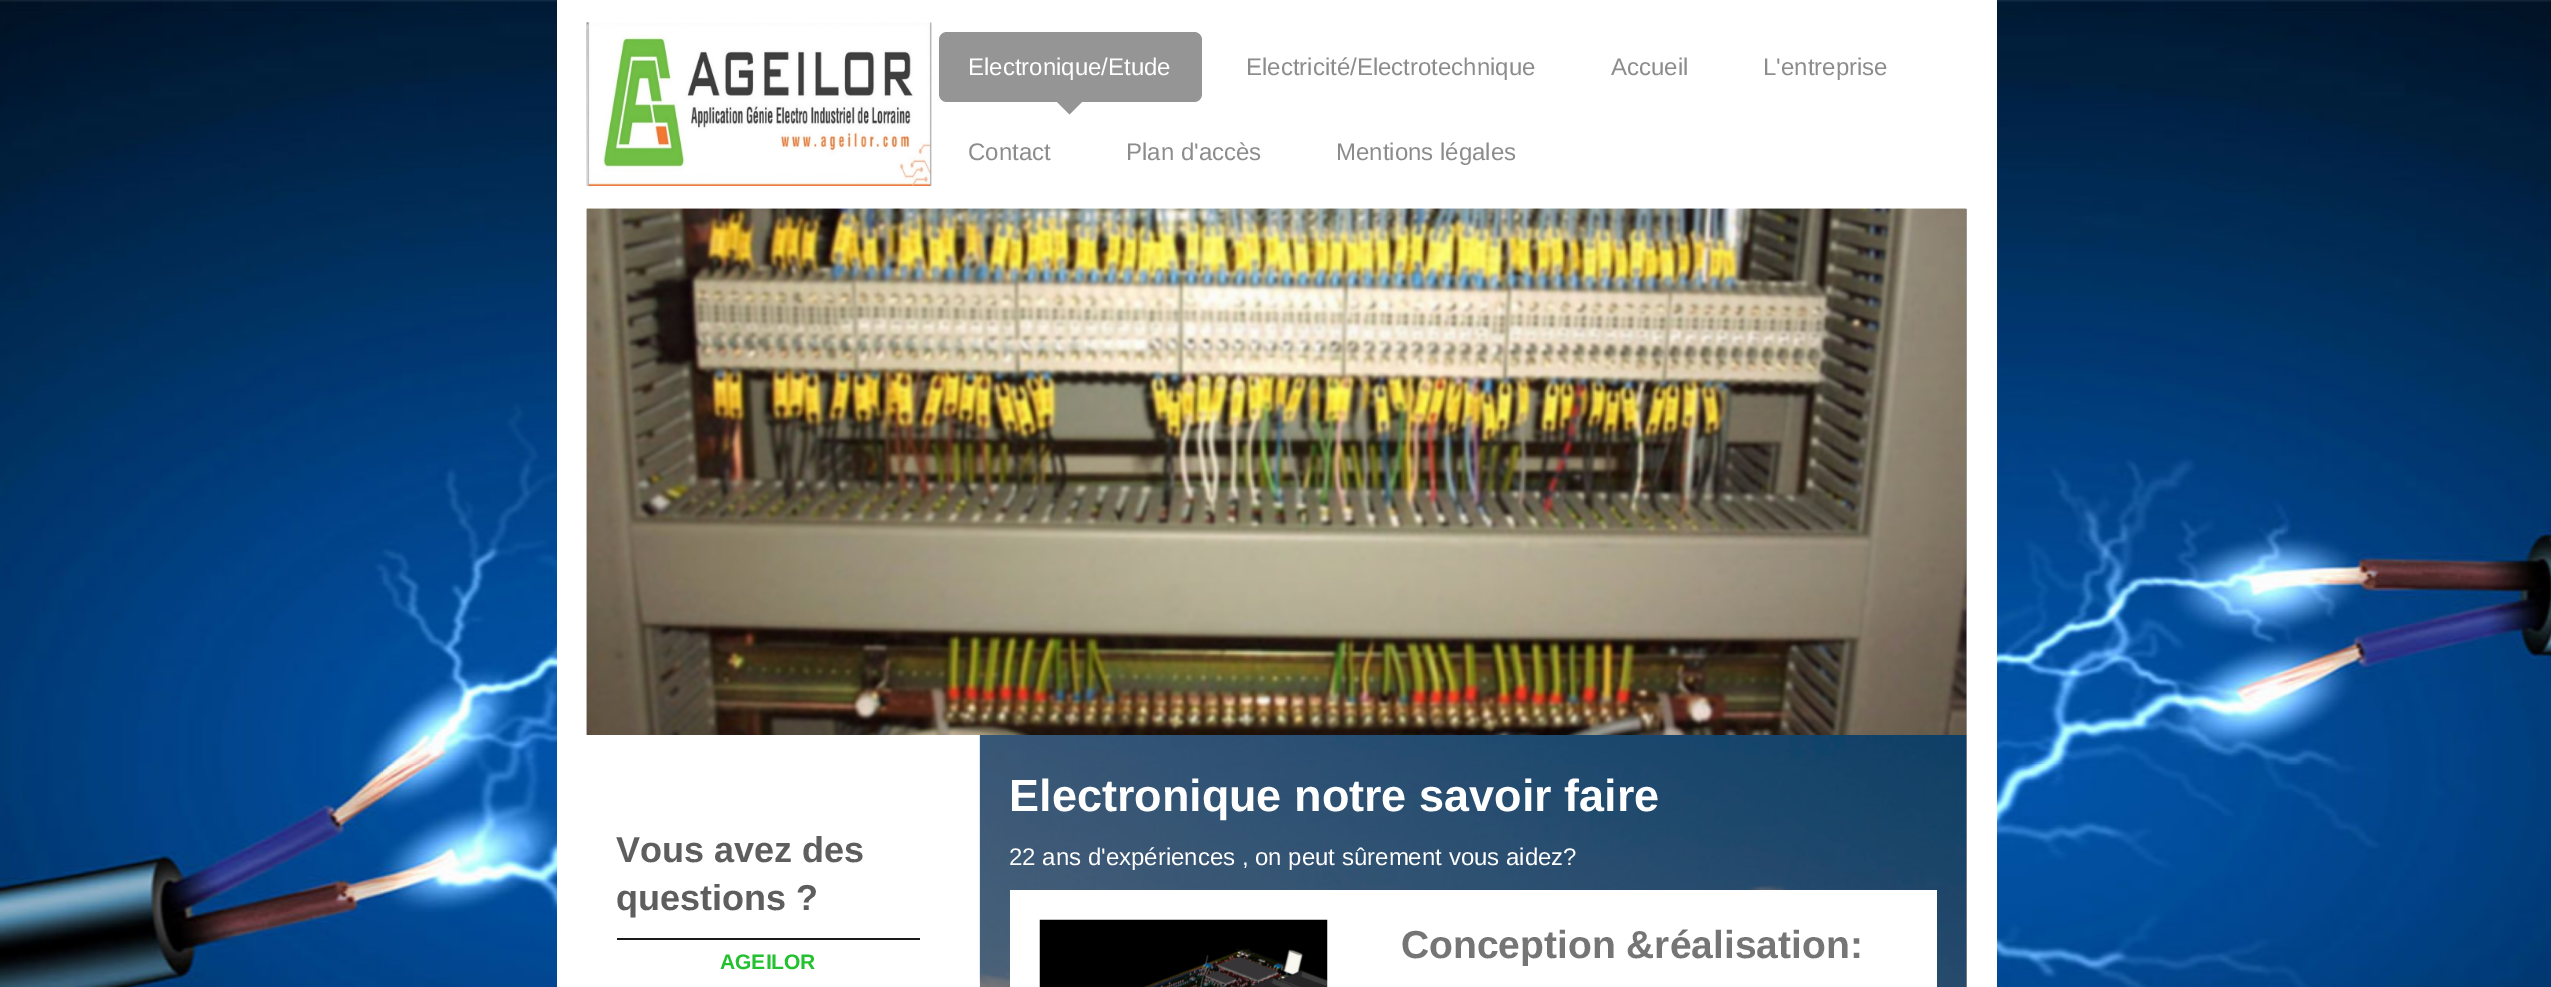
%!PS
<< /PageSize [2551 987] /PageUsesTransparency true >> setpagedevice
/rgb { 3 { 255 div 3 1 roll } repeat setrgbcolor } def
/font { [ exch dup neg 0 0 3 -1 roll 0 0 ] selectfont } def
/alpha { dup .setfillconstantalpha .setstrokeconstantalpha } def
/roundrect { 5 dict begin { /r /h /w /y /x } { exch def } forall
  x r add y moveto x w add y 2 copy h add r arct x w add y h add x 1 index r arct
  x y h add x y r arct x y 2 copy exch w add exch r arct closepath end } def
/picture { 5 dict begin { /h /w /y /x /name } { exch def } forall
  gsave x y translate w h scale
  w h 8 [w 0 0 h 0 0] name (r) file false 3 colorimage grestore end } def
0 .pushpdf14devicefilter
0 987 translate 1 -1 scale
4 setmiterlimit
255 255 255 rgb
0 0 2551 987 rectfill
(img/1.rgb) 0 0 2551 987 picture
557 0 1440 987 rectfill
(img/2.rgb) 586 22 346 164 picture
149 149 149 rgb
939 32 263 70 8 roundrect fill
1054.5 99.5 moveto 1084.5 99.5 lineto 1069.5 114.5 lineto closepath fill
(img/3.rgb) 586 208 1381 527 picture
160 160 160 rgb
1966 209 1 526 rectfill
(img/4.rgb) 586 208 1381 527 picture
26 26 26 rgb
617 938 303 2 rectfill
(img/5.rgb) 979 735 988 252 picture
0.45 alpha
0 0 0 rgb
980 735 987 252 rectfill
1 alpha
255 255 255 rgb
1010 890 927 97 rectfill
(img/6.rgb) 1039 919 289 68 picture
/LiberationSans-Regular 24 font
968 75 moveto (Electronique/Etude) show
140 140 140 rgb
[
  [(Electricité/Electrotechnique) 1246 75]
  [(Accueil) 1611 75]
  [(L'entreprise) 1763 75]
  [(Contact) 968 160]
  [(Plan d'accès) 1126 160]
  [(Mentions légales) 1336 160]
] { aload pop moveto show } forall
/LiberationSans-Bold 36 font
94 94 94 rgb
616 862 moveto (Vous avez des) show
616 910 moveto (questions ?) show
/LiberationSans-Bold 21 font
35 193 48 rgb
720 969 moveto (AGEILOR) show
/LiberationSans-Bold 45 font
255 255 255 rgb
1009 811 moveto (Electronique notre savoir faire) show
/LiberationSans-Regular 24 font
1009 865 moveto (22 ans d'expériences , on peut sûrement vous aidez?) show
/LiberationSans-Bold 39 font
117 117 117 rgb
1401 958 moveto (Conception &réalisation:) show
.poppdf14devicefilter showpage
